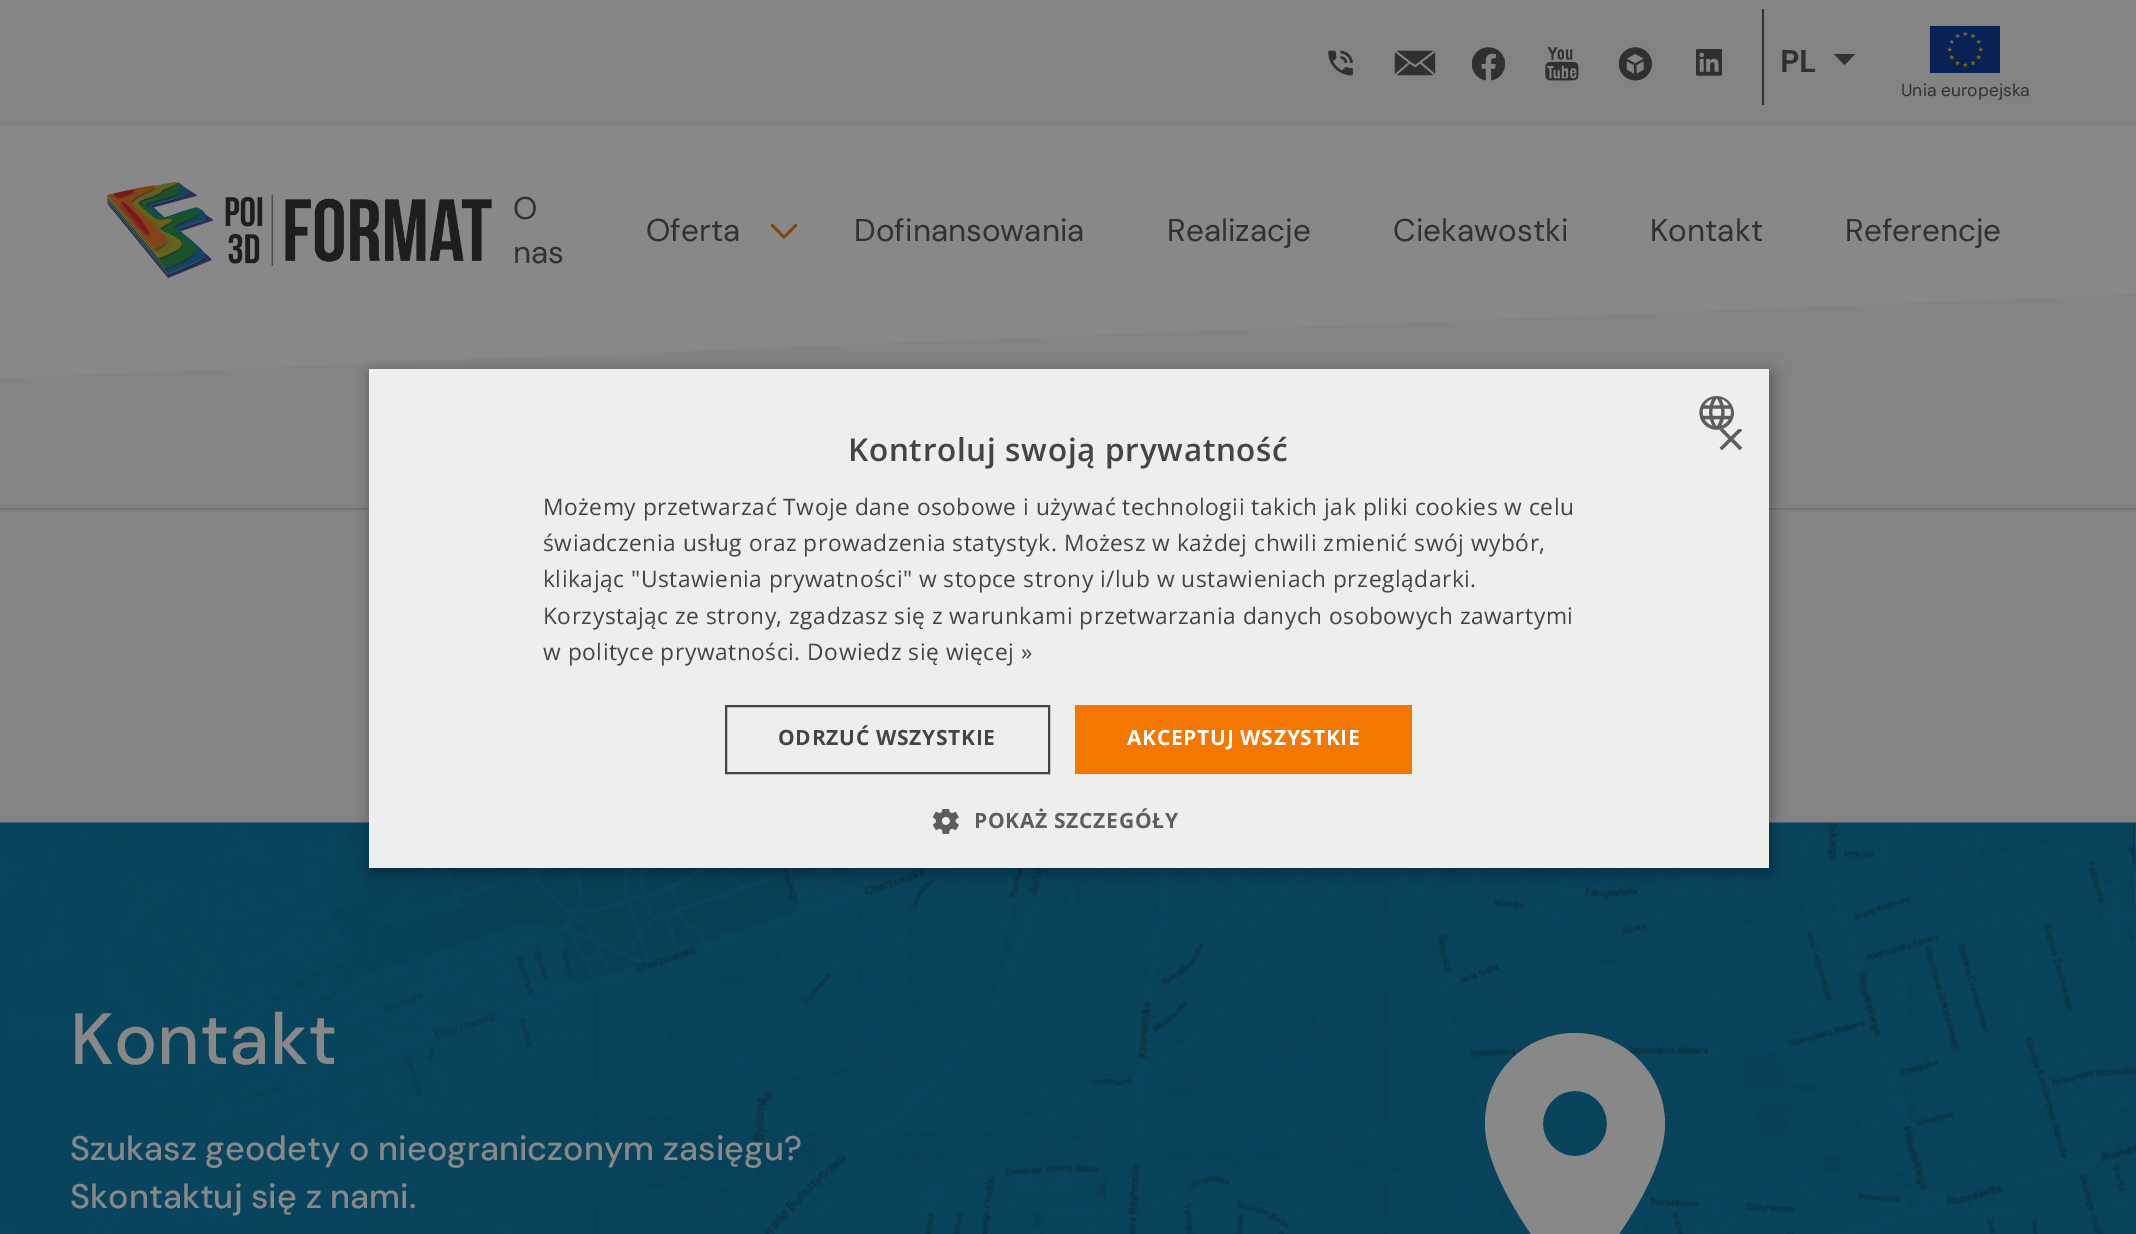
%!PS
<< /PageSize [2136 1234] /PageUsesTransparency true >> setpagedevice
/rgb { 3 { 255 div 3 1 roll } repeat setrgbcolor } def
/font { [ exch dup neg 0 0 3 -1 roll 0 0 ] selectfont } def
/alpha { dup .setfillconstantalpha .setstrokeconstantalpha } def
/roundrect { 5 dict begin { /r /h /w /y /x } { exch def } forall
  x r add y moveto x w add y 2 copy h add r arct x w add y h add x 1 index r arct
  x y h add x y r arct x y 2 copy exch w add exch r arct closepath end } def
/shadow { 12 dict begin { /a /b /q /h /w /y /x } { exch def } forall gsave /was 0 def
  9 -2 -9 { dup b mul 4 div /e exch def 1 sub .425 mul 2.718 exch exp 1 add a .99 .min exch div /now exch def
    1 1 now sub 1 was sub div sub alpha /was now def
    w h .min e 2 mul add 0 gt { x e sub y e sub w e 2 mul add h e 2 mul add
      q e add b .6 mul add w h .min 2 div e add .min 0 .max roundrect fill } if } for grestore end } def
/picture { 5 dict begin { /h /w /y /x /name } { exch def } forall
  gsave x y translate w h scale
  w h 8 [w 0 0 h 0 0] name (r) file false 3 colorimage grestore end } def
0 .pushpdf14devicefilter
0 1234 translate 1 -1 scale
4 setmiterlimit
132 130 130 rgb
0 0 2136 1234 rectfill
136 136 136 rgb
0 0 moveto 0 378 lineto 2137 294 lineto 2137 0 lineto closepath fill
132 130 130 rgb
0 0 2136 126 rectfill
(img/1.rgb) 1328 50 25 26 picture
(img/2.rgb) 1394 50 42 26 picture
(img/3.rgb) 1472 47 33 34 picture
(img/4.rgb) 1545 47 34 34 picture
(img/5.rgb) 1619 47 33 34 picture
(img/6.rgb) 1696 49 26 27 picture
49 49 49 rgb
1762 9 2 96 rectfill
1834 54 moveto 1855 54 lineto 1844.5 65 lineto closepath fill
(img/7.rgb) 1930 26 70 47 picture
(img/8.rgb) 106 182 386 97 picture
(img/9.rgb) 770 223 28 16 picture
115 115 115 rgb
0 508 2136 2 rectfill
(img/10.rgb) 0 822 2136 412 picture
136 136 136 rgb
1575 1033 moveto 1525 1033 1485 1073 1485 1123 curveto 1485 1124 lineto 1485 1191 1575 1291 1575 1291 curveto 1575 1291 1665 1191 1665 1124 curveto 1665 1074 1625 1033 1575 1033 curveto closepath 1575 1156 moveto 1557 1156 1543 1141 1543 1124 curveto 1543 1106 1557 1091 1575 1091 curveto 1593 1091 1607 1106 1607 1124 curveto 1607 1141 1593 1156 1575 1156 curveto closepath fill
0 0 0 rgb
371 373 1400 499 0 7 0.35 shadow
238 238 238 rgb
369 369 1400 499 rectfill
(img/11.rgb) 1699 396 35 34 picture
68 68 68 rgb
2 setlinewidth
726 706 323 67 rectstroke
244 119 0 rgb
1075 705 337 69 rectfill
(img/12.rgb) 933 809 26 25 picture
/DMSans-Bold 31.5 font
49 49 49 rgb
1780 72 moveto (PL) show
/DMSans-Regular 17.5 font
1901 96 moveto (Unia europejska) show
/DMSans-Regular 31.5 font
[
  [(O) 513 219]
  [(nas) 513 263]
  [(Oferta) 646 241]
  [(Dofinansowania) 854 241]
  [(Realizacje) 1167 241]
  [(Ciekawostki) 1393 241]
  [(Kontakt) 1650 241]
  [(Referencje) 1845 241]
] { aload pop moveto show } forall
/DMSans-Medium 72.5 font
136 136 136 rgb
70 1064 moveto (Kontakt) show
/DMSans-Medium 34.2 font
70 1160 moveto (Szukasz geodety o nieograniczonym zasięgu?) show
70 1208 moveto (Skontaktuj się z nami.) show
/OpenSans-SemiBold 31.5 font
68 68 68 rgb
848 461 moveto 0.7 0 (Kontroluj swoją prywatność) ashow
gsave
1717 429 26 26 rectclip
/LiberationSans-Regular 51 font
94 94 94 rgb
1716 456 moveto (×) show
grestore
/OpenSans-Regular 22.75 font
543 515 moveto 0.53 0 (Możemy przetwarzać Twoje dane osobowe i używać technologii takich jak pliki cookies w celu) ashow
543 551 moveto 0.53 0 (świadczenia usług oraz prowadzenia statystyk. Możesz w każdej chwili zmienić swój wybór,) ashow
543 587 moveto 0.53 0 (klikając "Ustawienia prywatności" w stopce strony i/lub w ustawieniach przeglądarki.) ashow
543 624 moveto 0.53 0 (Korzystając ze strony, zgadzasz się z warunkami przetwarzania danych osobowych zawartymi) ashow
543 660 moveto 0.53 0 (w polityce prywatności. Dowiedz się więcej ») ashow
/OpenSans-Bold 21 font
778 745 moveto 0.7 0 (ODRZUĆ WSZYSTKIE) ashow
255 255 255 rgb
1127 745 moveto 0.7 0 (AKCEPTUJ WSZYSTKIE) ashow
94 94 94 rgb
974 828 moveto 0.7 0 (POKAŻ SZCZEGÓŁY) ashow
.poppdf14devicefilter showpage
